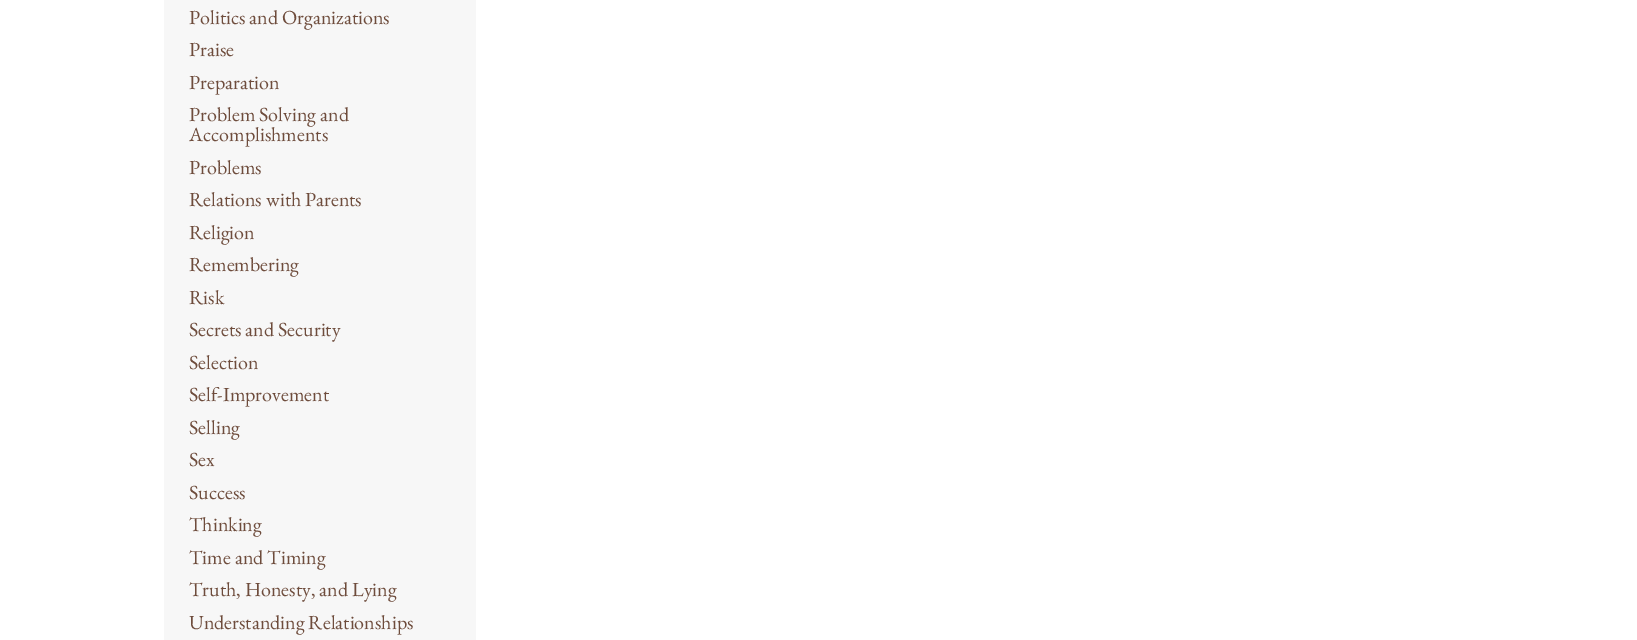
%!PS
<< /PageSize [1637 640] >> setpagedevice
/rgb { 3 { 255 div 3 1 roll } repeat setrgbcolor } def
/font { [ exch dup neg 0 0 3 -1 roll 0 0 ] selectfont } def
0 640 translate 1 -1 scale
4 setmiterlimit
255 255 255 rgb
0 0 1637 640 rectfill
247 247 247 rgb
164 0 312 640 rectfill
/EBGaramond-Regular 20 font
110 76 60 rgb
[
  [(Politics and Organizations) 189 24]
  [(Praise) 189 56]
  [(Preparation) 189 89]
  [(Problem Solving and) 189 121]
  [(Accomplishments) 189 141]
  [(Problems) 189 174]
  [(Relations with Parents) 189 206]
  [(Religion) 189 239]
  [(Remembering) 189 271]
  [(Risk) 189 304]
  [(Secrets and Security) 189 336]
  [(Selection) 189 369]
  [(Self-Improvement) 189 401]
  [(Selling) 189 434]
  [(Sex) 189 466]
  [(Success) 189 499]
  [(Thinking) 189 531]
  [(Time and Timing) 189 564]
  [(Truth, Honesty, and Lying) 189 596]
  [(Understanding Relationships) 189 629]
] { aload pop moveto show } forall
showpage
